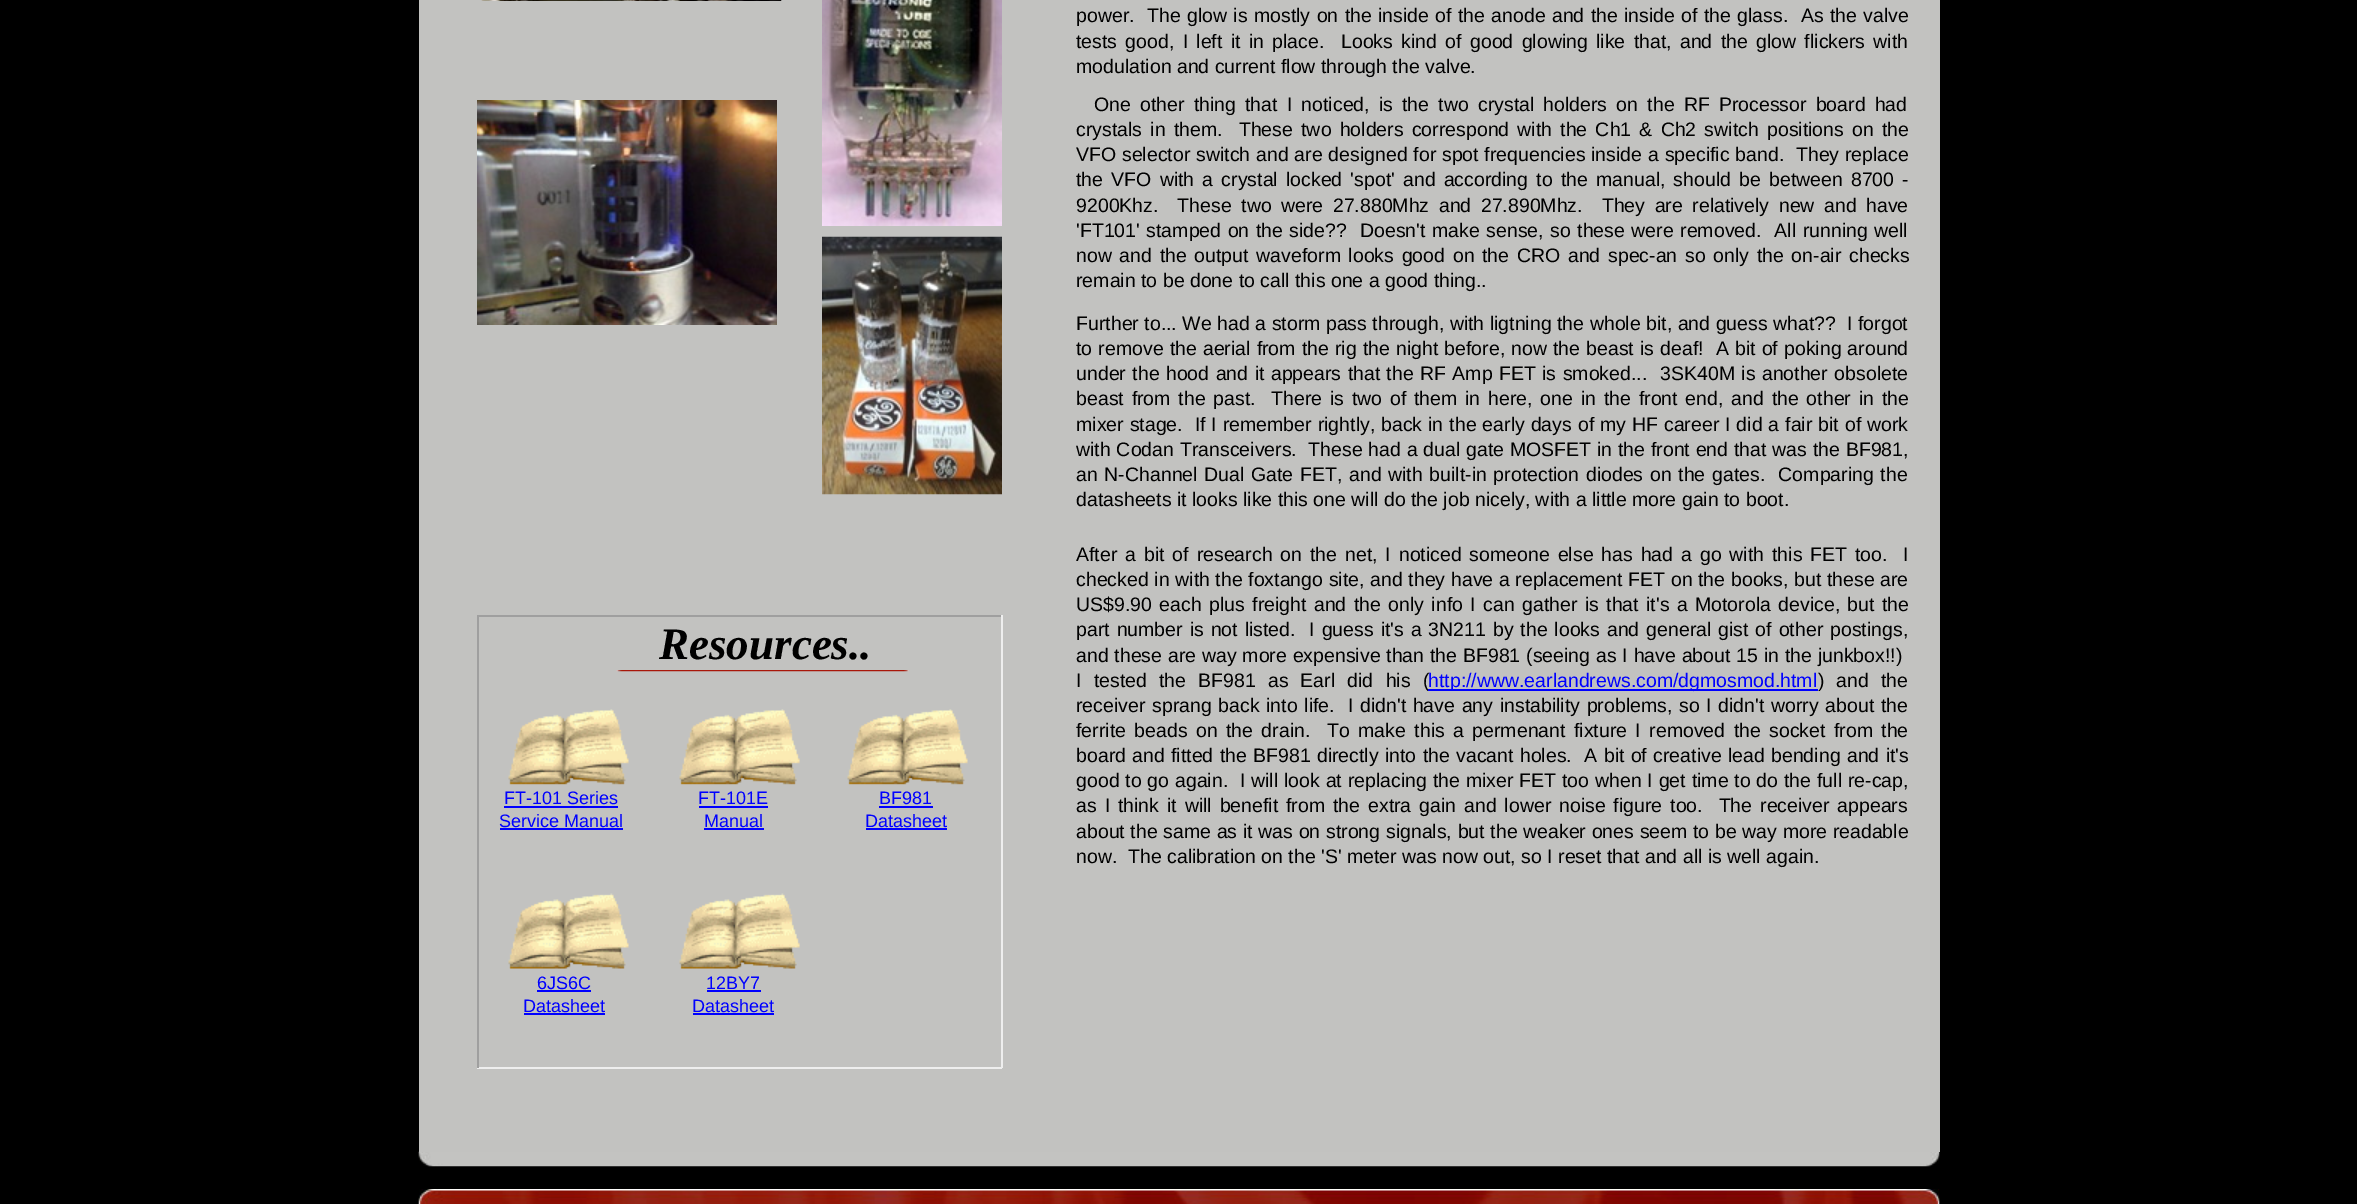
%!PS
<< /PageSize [2357 1204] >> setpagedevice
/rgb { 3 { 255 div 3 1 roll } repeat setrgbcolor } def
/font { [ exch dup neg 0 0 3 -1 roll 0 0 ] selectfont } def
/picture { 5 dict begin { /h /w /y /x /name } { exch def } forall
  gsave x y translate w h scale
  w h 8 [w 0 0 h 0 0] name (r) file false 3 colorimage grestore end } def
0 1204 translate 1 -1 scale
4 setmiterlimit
0 0 0 rgb
0 0 2357 1204 rectfill
(img/1.rgb) 418 1151 1522 16 picture
194 194 192 rgb
419 0 1521 1152 rectfill
(img/2.rgb) 481 0 301 1 picture
(img/3.rgb) 822 0 180 226 picture
(img/4.rgb) 477 100 300 225 picture
(img/5.rgb) 822 236 180 259 picture
(img/6.rgb) 616 670 293 2 picture
(img/7.rgb) 508 709 121 76 picture
(img/8.rgb) 679 709 121 76 picture
(img/7.rgb) 847 709 121 76 picture
(img/9.rgb) 508 893 121 76 picture
(img/10.rgb) 679 893 121 76 picture
[
  [504 806 114 2 0 0 255]
  [500 828 123 2 0 0 255]
  [699 806 69 2 0 0 255]
  [704 828 60 2 0 0 255]
  [879 806 54 2 0 0 255]
  [866 828 81 2 0 0 255]
  [537 990 54 2 0 0 255]
  [524 1013 81 2 0 0 255]
  [707 990 54 2 0 0 255]
  [693 1013 81 2 0 0 255]
  [477 615 525 2 159 159 159]
  [1001 615 2 453 238 238 238]
  [477 1067 525 2 238 238 238]
  [477 615 2 453 159 159 159]
] { aload pop rgb rectfill } forall
(img/11.rgb) 418 1189 1522 15 picture
/LiberationSans-Regular 19.5 font
0 0 0 rgb
1076 22 moveto 0.9 0 32 (power.  The glow is mostly on the inside of the anode and the inside of the glass.  As the valve) widthshow
1076 48 moveto 2.9 0 32 (tests good, I left it in place.  Looks kind of good glowing like that, and the glow flickers with) widthshow
1076 73 moveto (modulation and current flow through the valve.) show
1094 111 moveto 3.75 0 32 (One other thing that I noticed, is the two crystal holders on the RF Processor board had) widthshow
1076 136 moveto 2.75 0 32 (crystals in them.  These two holders correspond with the Ch1 & Ch2 switch positions on the) widthshow
1076 161 moveto 0.4 0 32 (VFO selector switch and are designed for spot frequencies inside a specific band.  They replace) widthshow
1076 186 moveto 2.75 0 32 (the VFO with a crystal locked 'spot' and according to the manual, should be between 8700 -) widthshow
1076 212 moveto 4.1 0 32 (9200Khz.  These two were 27.880Mhz and 27.890Mhz.  They are relatively new and have) widthshow
1076 237 moveto 1.1 0 32 ('FT101' stamped on the side??  Doesn't make sense, so these were removed.  All running well) widthshow
1076 262 moveto 2.25 0 32 (now and the output waveform looks good on the CRO and spec-an so only the on-air checks) widthshow
1076 287 moveto (remain to be done to call this one a good thing..) show
1076 330 moveto 0.1 0 32 (Further to... We had a storm pass through, with ligtning the whole bit, and guess what??  I forgot) widthshow
1076 355 moveto 0.7 0 32 (to remove the aerial from the rig the night before, now the beast is deaf!  A bit of poking around) widthshow
1076 380 moveto 1 0 32 (under the hood and it appears that the RF Amp FET is smoked...  3SK40M is another obsolete) widthshow
1076 405 moveto 2.4 0 32 (beast from the past.  There is two of them in here, one in the front end, and the other in the) widthshow
1076 431 moveto 0.55 0 32 (mixer stage.  If I remember rightly, back in the early days of my HF career I did a fair bit of work) widthshow
1076 456 moveto 0.4 0 32 (with Codan Transceivers.  These had a dual gate MOSFET in the front end that was the BF981,) widthshow
1076 481 moveto 1.25 0 32 (an N-Channel Dual Gate FET, and with built-in protection diodes on the gates.  Comparing the) widthshow
1076 506 moveto (datasheets it looks like this one will do the job nicely, with a little more gain to boot.) show
/LiberationSerif-BoldItalic 45 font
659 659 moveto (Resources..) show
/LiberationSans-Regular 19.5 font
1076 561 moveto 2.5 0 32 (After a bit of research on the net, I noticed someone else has had a go with this FET too.  I) widthshow
1076 586 moveto 0.25 0 32 (checked in with the foxtango site, and they have a replacement FET on the books, but these are) widthshow
1076 611 moveto 2 0 32 (US$9.90 each plus freight and the only info I can gather is that it's a Motorola device, but the) widthshow
1076 636 moveto 1.5 0 32 (part number is not listed.  I guess it's a 3N211 by the looks and general gist of other postings,) widthshow
1076 662 moveto 0.4 0 32 (and these are way more expensive than the BF981 \(seeing as I have about 15 in the junkbox!!\)) widthshow
1076 687 moveto 6.75 0 32 (I tested the BF981 as Earl did his \() widthshow
0 0 255 rgb
1428 689 390 2 rectfill
1428 687 moveto (http://www.earlandrews.com/dgmosmod.html) show
0 0 0 rgb
1818 687 moveto (\)) show
1836 687 moveto 7 0 32 (and the) widthshow
1076 712 moveto 1.25 0 32 (receiver sprang back into life.  I didn't have any instability problems, so I didn't worry about the) widthshow
1076 737 moveto 3 0 32 (ferrite beads on the drain.  To make this a permenant fixture I removed the socket from the) widthshow
1076 762 moveto 0.9 0 32 (board and fitted the BF981 directly into the vacant holes.  A bit of creative lead bending and it's) widthshow
1076 787 moveto 0.45 0 32 (good to go again.  I will look at replacing the mixer FET too when I get time to do the full re-cap,) widthshow
1076 812 moveto 2.5 0 32 (as I think it will benefit from the extra gain and lower noise figure too.  The receiver appears) widthshow
1076 838 moveto 0.25 0 32 (about the same as it was on strong signals, but the weaker ones seem to be way more readable) widthshow
1076 863 moveto (now.  The calibration on the 'S' meter was now out, so I reset that and all is well again.) show
/LiberationSans-Regular 18 font
0 0 255 rgb
[
  [(FT-101 Series) 504 804]
  [(Service Manual) 499 827]
  [(FT-101E) 698 804]
  [(Manual) 704 827]
  [(BF981) 879 804]
  [(Datasheet) 865 827]
  [(6JS6C) 537 989]
  [(Datasheet) 523 1012]
  [(12BY7) 706 989]
  [(Datasheet) 692 1012]
] { aload pop moveto show } forall
showpage
